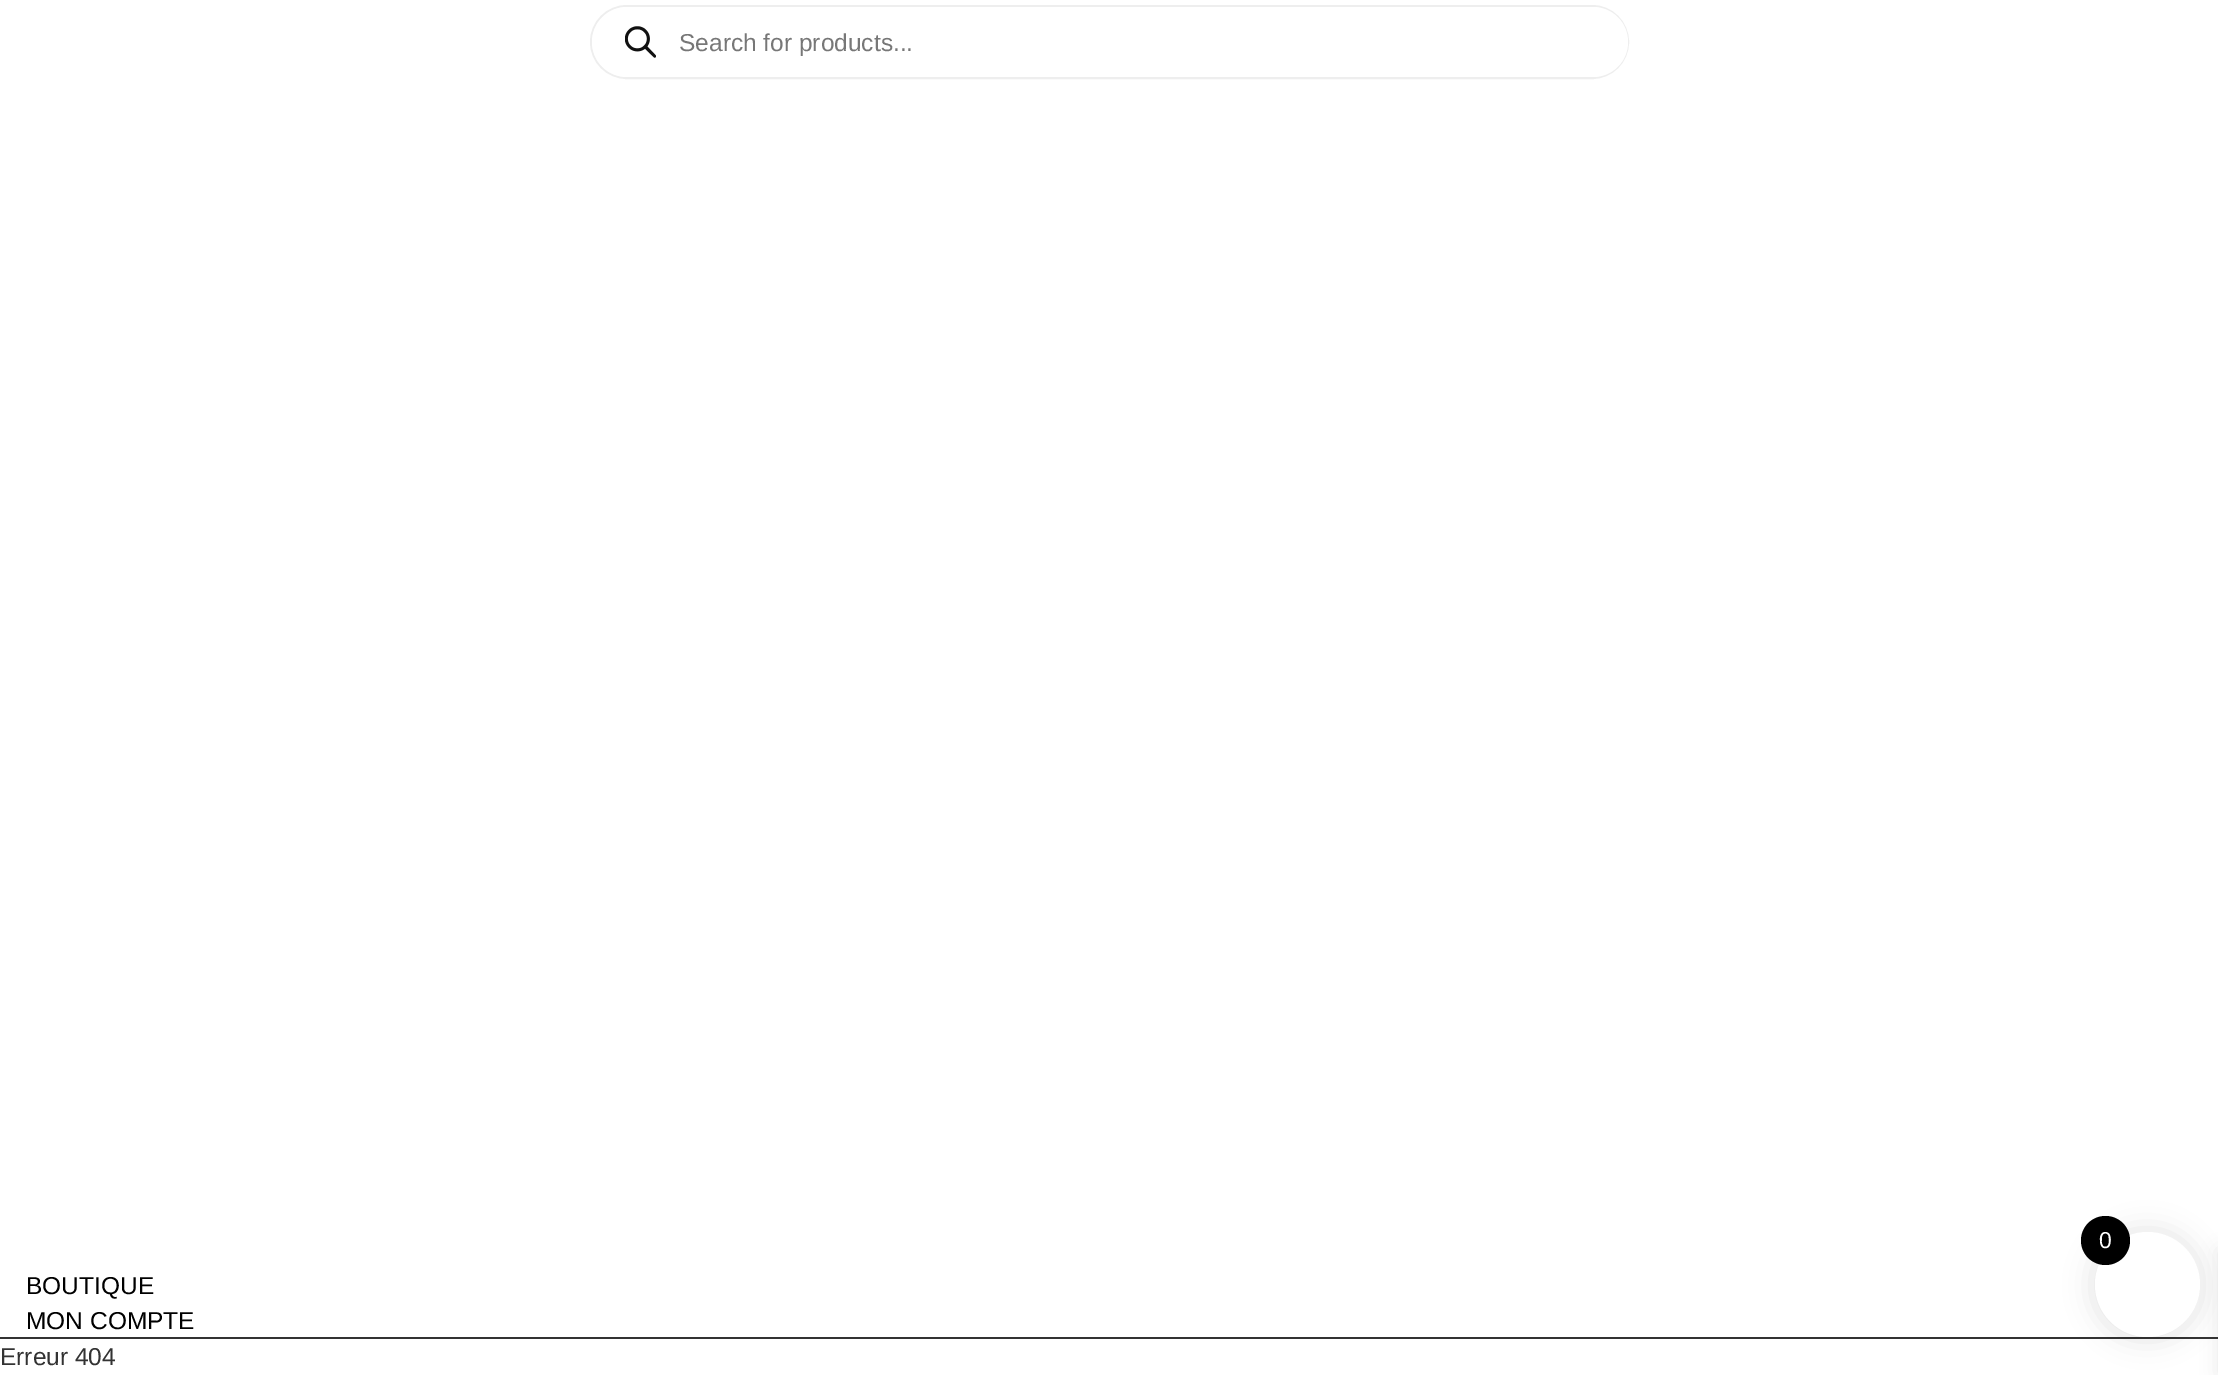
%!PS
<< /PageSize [2218 1375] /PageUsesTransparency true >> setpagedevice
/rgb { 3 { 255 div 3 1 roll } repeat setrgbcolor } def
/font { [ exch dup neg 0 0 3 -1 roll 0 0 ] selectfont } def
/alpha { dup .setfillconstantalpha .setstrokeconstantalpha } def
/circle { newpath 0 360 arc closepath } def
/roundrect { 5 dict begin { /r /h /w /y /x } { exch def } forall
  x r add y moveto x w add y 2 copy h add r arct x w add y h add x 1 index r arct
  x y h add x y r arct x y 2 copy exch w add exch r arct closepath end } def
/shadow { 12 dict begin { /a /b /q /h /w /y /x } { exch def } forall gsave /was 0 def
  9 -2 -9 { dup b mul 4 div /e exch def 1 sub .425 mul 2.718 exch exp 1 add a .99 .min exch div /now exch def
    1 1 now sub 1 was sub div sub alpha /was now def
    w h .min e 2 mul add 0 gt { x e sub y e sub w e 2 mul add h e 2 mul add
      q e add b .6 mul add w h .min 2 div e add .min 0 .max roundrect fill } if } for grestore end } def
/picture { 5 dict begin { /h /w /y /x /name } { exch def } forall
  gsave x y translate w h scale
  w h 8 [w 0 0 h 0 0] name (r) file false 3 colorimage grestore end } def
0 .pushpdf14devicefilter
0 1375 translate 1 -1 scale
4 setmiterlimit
255 255 255 rgb
0 0 2218 1375 rectfill
51 51 51 rgb
0 1337 2218 2 rectfill
238 238 238 rgb
2 setlinewidth
591 6 1037 72 36 roundrect stroke
255 255 255 rgb
592 7 1036 70 35 roundrect fill
(img/1.rgb) 625 26 31 32 picture
0 0 0 rgb
2091 1229 112 112 56 13 0.1 shadow
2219 1251 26 123 0 9 0.1 shadow
255 255 255 rgb
2147.5 1284.5 52.5 circle fill
0 0 0 rgb
2105.5 1240.5 24.5 circle fill
/LiberationSans-Regular 24.5 font
119 119 119 rgb
679 51 moveto (Search for products...) show
0 0 0 rgb
26 1294 moveto (BOUTIQUE) show
26 1329 moveto (MON COMPTE) show
/LiberationSans-Regular 23 font
255 255 255 rgb
2099 1248 moveto (0) show
/LiberationSans-Regular 24.5 font
51 51 51 rgb
0 1365 moveto (Erreur 404) show
.poppdf14devicefilter showpage
